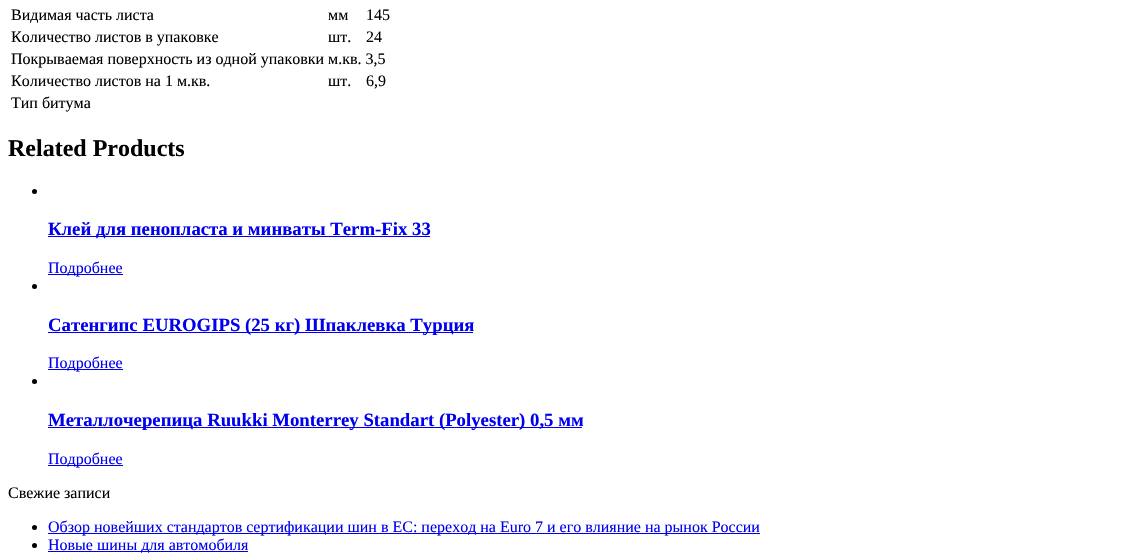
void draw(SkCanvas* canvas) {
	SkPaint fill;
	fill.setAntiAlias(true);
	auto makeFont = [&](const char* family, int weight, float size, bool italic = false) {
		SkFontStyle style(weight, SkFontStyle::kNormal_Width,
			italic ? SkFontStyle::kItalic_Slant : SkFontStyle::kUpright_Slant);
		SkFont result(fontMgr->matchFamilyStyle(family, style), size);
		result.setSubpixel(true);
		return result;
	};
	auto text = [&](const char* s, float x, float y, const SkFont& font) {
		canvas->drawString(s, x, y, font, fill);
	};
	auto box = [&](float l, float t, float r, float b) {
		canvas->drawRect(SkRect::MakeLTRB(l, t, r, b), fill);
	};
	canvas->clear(0xFFFFFFFF);
	fill.setColor(0xFF000000);
	canvas->drawCircle(34.5f, 191.5f, 2.5f, fill);
	fill.setColor(0xFF0000EE);
	box(48, 236, 430, 237);
	box(48, 274, 123, 275);
	fill.setColor(0xFF000000);
	canvas->drawCircle(34.5f, 286.5f, 2.5f, fill);
	fill.setColor(0xFF0000EE);
	box(48, 332, 473, 333);
	box(48, 369, 123, 370);
	fill.setColor(0xFF000000);
	canvas->drawCircle(34.5f, 381.5f, 2.5f, fill);
	fill.setColor(0xFF0000EE);
	box(48, 427, 582, 428);
	box(48, 465, 123, 466);
	fill.setColor(0xFF000000);
	canvas->drawCircle(34.5f, 527.5f, 2.5f, fill);
	fill.setColor(0xFF0000EE);
	box(48, 533, 760, 534);
	fill.setColor(0xFF000000);
	canvas->drawCircle(34.5f, 545.5f, 2.5f, fill);
	fill.setColor(0xFF0000EE);
	box(48, 551, 248, 552);
	auto font1 = makeFont("Liberation Serif", 400, 16);
	fill.setColor(0xFF000000);
	text("Видимая часть листа", 11, 20, font1);
	text("мм", 328, 20, font1);
	text("145", 366, 20, font1);
	text("Количество листов в упаковке", 11, 42, font1);
	text("шт.", 328, 42, font1);
	text("24", 366, 42, font1);
	text("Покрываемая поверхность из одной упаковки м.кв. 3,5", 11, 64, font1);
	text("Количество листов на 1 м.кв.", 11, 86, font1);
	text("шт.", 328, 86, font1);
	text("6,9", 366, 86, font1);
	text("Тип битума", 11, 108, font1);
	auto font2 = makeFont("Liberation Serif", 700, 24);
	text("Related Products", 8, 156, font2);
	auto font3 = makeFont("Liberation Serif", 700, 18.75f);
	fill.setColor(0xFF0000EE);
	text("Клей для пенопласта и минваты Term-Fix 33", 48, 235, font3);
	text("Подробнее", 48, 273, font1);
	text("Сатенгипс EUROGIPS (25 кг) Шпаклевка Турция", 48, 331, font3);
	text("Подробнее", 48, 368, font1);
	text("Металлочерепица Ruukki Monterrey Standart (Polyester) 0,5 мм", 48, 426, font3);
	text("Подробнее", 48, 464, font1);
	fill.setColor(0xFF000000);
	text("Свежие записи", 8, 498, font1);
	fill.setColor(0xFF0000EE);
	text("Обзор новейших стандартов сертификации шин в ЕС: переход на Euro 7 и его влияние на рынок России", 48, 532, font1);
	text("Новые шины для автомобиля", 48, 550, font1);
}
